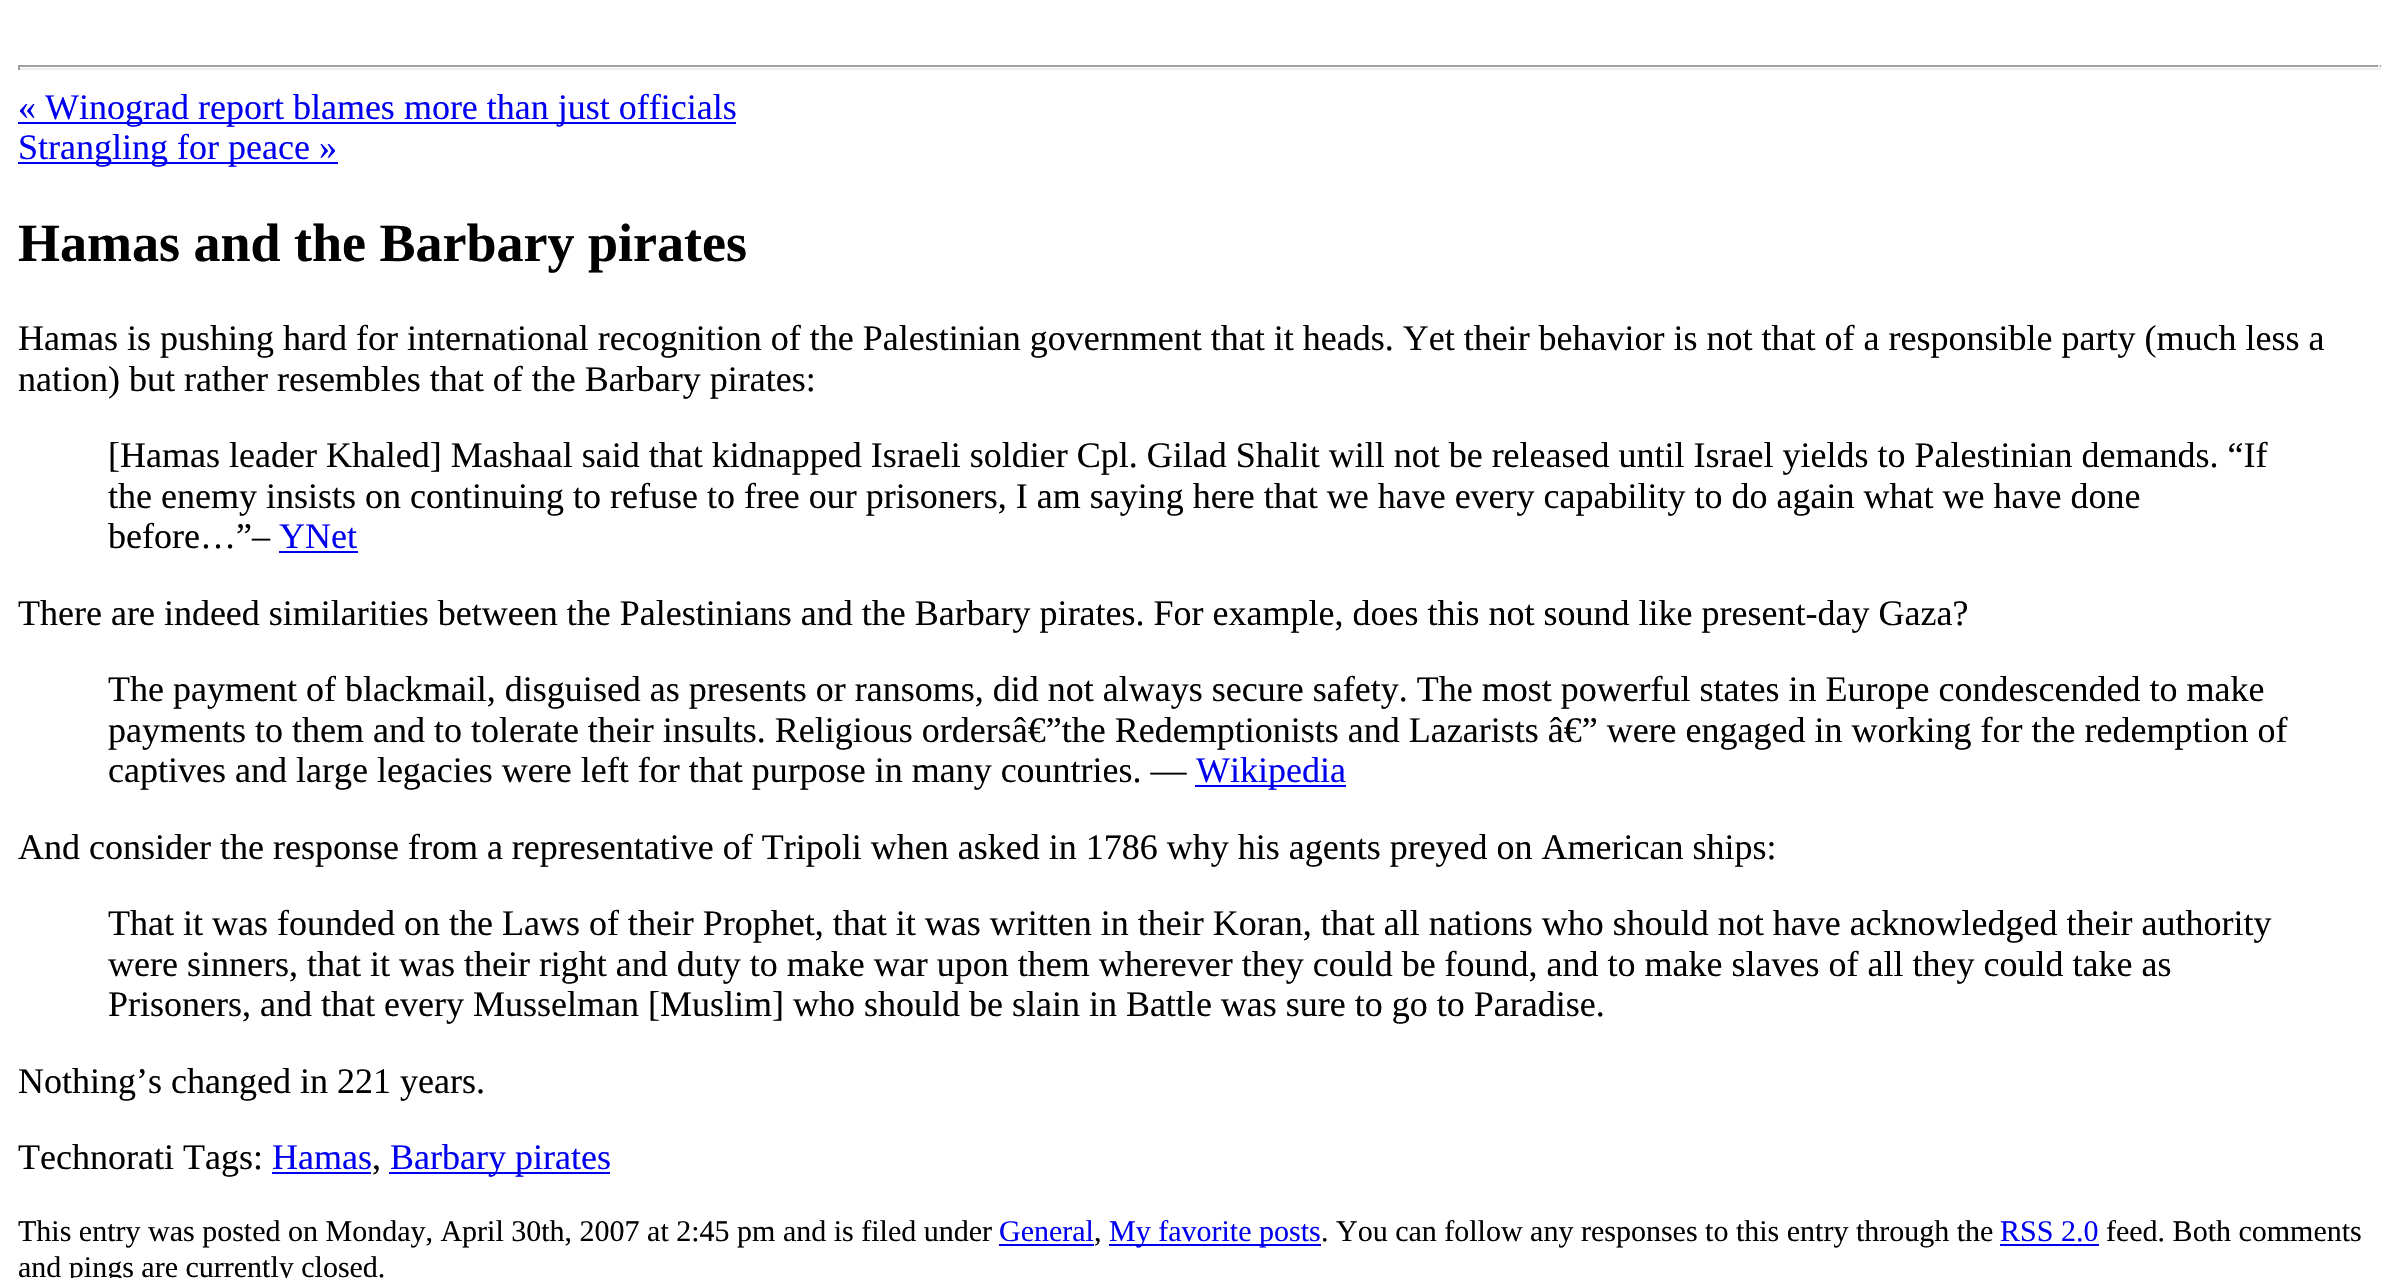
void draw(SkCanvas* canvas) {
	SkPaint fill;
	fill.setAntiAlias(true);
	auto makeFont = [&](const char* family, int weight, float size, bool italic = false) {
		SkFontStyle style(weight, SkFontStyle::kNormal_Width,
			italic ? SkFontStyle::kItalic_Slant : SkFontStyle::kUpright_Slant);
		SkFont result(fontMgr->matchFamilyStyle(family, style), size);
		result.setSubpixel(true);
		return result;
	};
	auto text = [&](const char* s, float x, float y, const SkFont& font) {
		canvas->drawString(s, x, y, font, fill);
	};
	auto box = [&](float l, float t, float r, float b) {
		canvas->drawRect(SkRect::MakeLTRB(l, t, r, b), fill);
	};
	canvas->clear(0xFFFFFFFF);
	fill.setColor(0xFF9F9F9F);
	box(18, 65, 2381, 67);
	fill.setColor(0xFFEEEEEE);
	box(2378, 65, 2380, 70);
	box(18, 68, 2381, 70);
	fill.setColor(0xFF9F9F9F);
	box(18, 65, 20, 70);
	fill.setColor(0xFF0000EE);
	box(18, 122, 736, 124);
	box(18, 162, 338, 164);
	box(279, 551, 358, 553);
	box(1195, 785, 1346, 787);
	box(272, 1172, 371, 1174);
	box(389, 1172, 610, 1174);
	box(999, 1244, 1094, 1246);
	box(1109, 1244, 1321, 1246);
	box(2000, 1244, 2099, 1246);
	auto font1 = makeFont("Liberation Serif", 400, 36);
	text("« Winograd report blames more than just officials", 18, 119, font1);
	text("Strangling for peace »", 18, 159, font1);
	auto font2 = makeFont("Liberation Serif", 700, 54);
	fill.setColor(0xFF000000);
	text("Hamas and the Barbary pirates", 18, 261, font2);
	text("Hamas is pushing hard for international recognition of the Palestinian government that it heads. Yet their behavior is not that of a responsible party (much less a", 18, 350, font1);
	text("nation) but rather resembles that of the Barbary pirates:", 18, 391, font1);
	text("[Hamas leader Khaled] Mashaal said that kidnapped Israeli soldier Cpl. Gilad Shalit will not be released until Israel yields to Palestinian demands. “If", 108, 467, font1);
	text("the enemy insists on continuing to refuse to free our prisoners, I am saying here that we have every capability to do again what we have done", 108, 508, font1);
	text("before…”–", 108, 548, font1);
	fill.setColor(0xFF0000EE);
	text("YNet", 279, 548, font1);
	fill.setColor(0xFF000000);
	text("There are indeed similarities between the Palestinians and the Barbary pirates. For example, does this not sound like present-day Gaza?", 18, 625, font1);
	text("The payment of blackmail, disguised as presents or ransoms, did not always secure safety. The most powerful states in Europe condescended to make", 108, 701, font1);
	text("payments to them and to tolerate their insults. Religious ordersâ€”the Redemptionists and Lazarists â€” were engaged in working for the redemption of", 108, 742, font1);
	text("captives and large legacies were left for that purpose in many countries. —", 108, 782, font1);
	fill.setColor(0xFF0000EE);
	text("Wikipedia", 1196, 782, font1);
	fill.setColor(0xFF000000);
	text("And consider the response from a representative of Tripoli when asked in 1786 why his agents preyed on American ships:", 18, 859, font1);
	text("That it was founded on the Laws of their Prophet, that it was written in their Koran, that all nations who should not have acknowledged their authority", 108, 935, font1);
	text("were sinners, that it was their right and duty to make war upon them wherever they could be found, and to make slaves of all they could take as", 108, 976, font1);
	text("Prisoners, and that every Musselman [Muslim] who should be slain in Battle was sure to go to Paradise.", 108, 1016, font1);
	text("Nothing’s changed in 221 years.", 18, 1093, font1);
	text("Technorati Tags:", 18, 1169, font1);
	fill.setColor(0xFF0000EE);
	text("Hamas", 272, 1169, font1);
	fill.setColor(0xFF000000);
	text(",", 372, 1169, font1);
	fill.setColor(0xFF0000EE);
	text("Barbary pirates", 390, 1169, font1);
	auto font3 = makeFont("Liberation Serif", 400, 30);
	fill.setColor(0xFF000000);
	text("This entry was posted on Monday, April 30th, 2007 at 2:45 pm and is filed under", 18, 1241, font3);
	fill.setColor(0xFF0000EE);
	text("General", 999, 1241, font3);
	fill.setColor(0xFF000000);
	text(",", 1094, 1241, font3);
	fill.setColor(0xFF0000EE);
	text("My favorite posts", 1109, 1241, font3);
	fill.setColor(0xFF000000);
	text(". You can follow any responses to this entry through the", 1321, 1241, font3);
	fill.setColor(0xFF0000EE);
	text("RSS 2.0", 2000, 1241, font3);
	fill.setColor(0xFF000000);
	text("feed. Both comments", 2106, 1241, font3);
	text("and pings are currently closed.", 18, 1277, font3);
}
